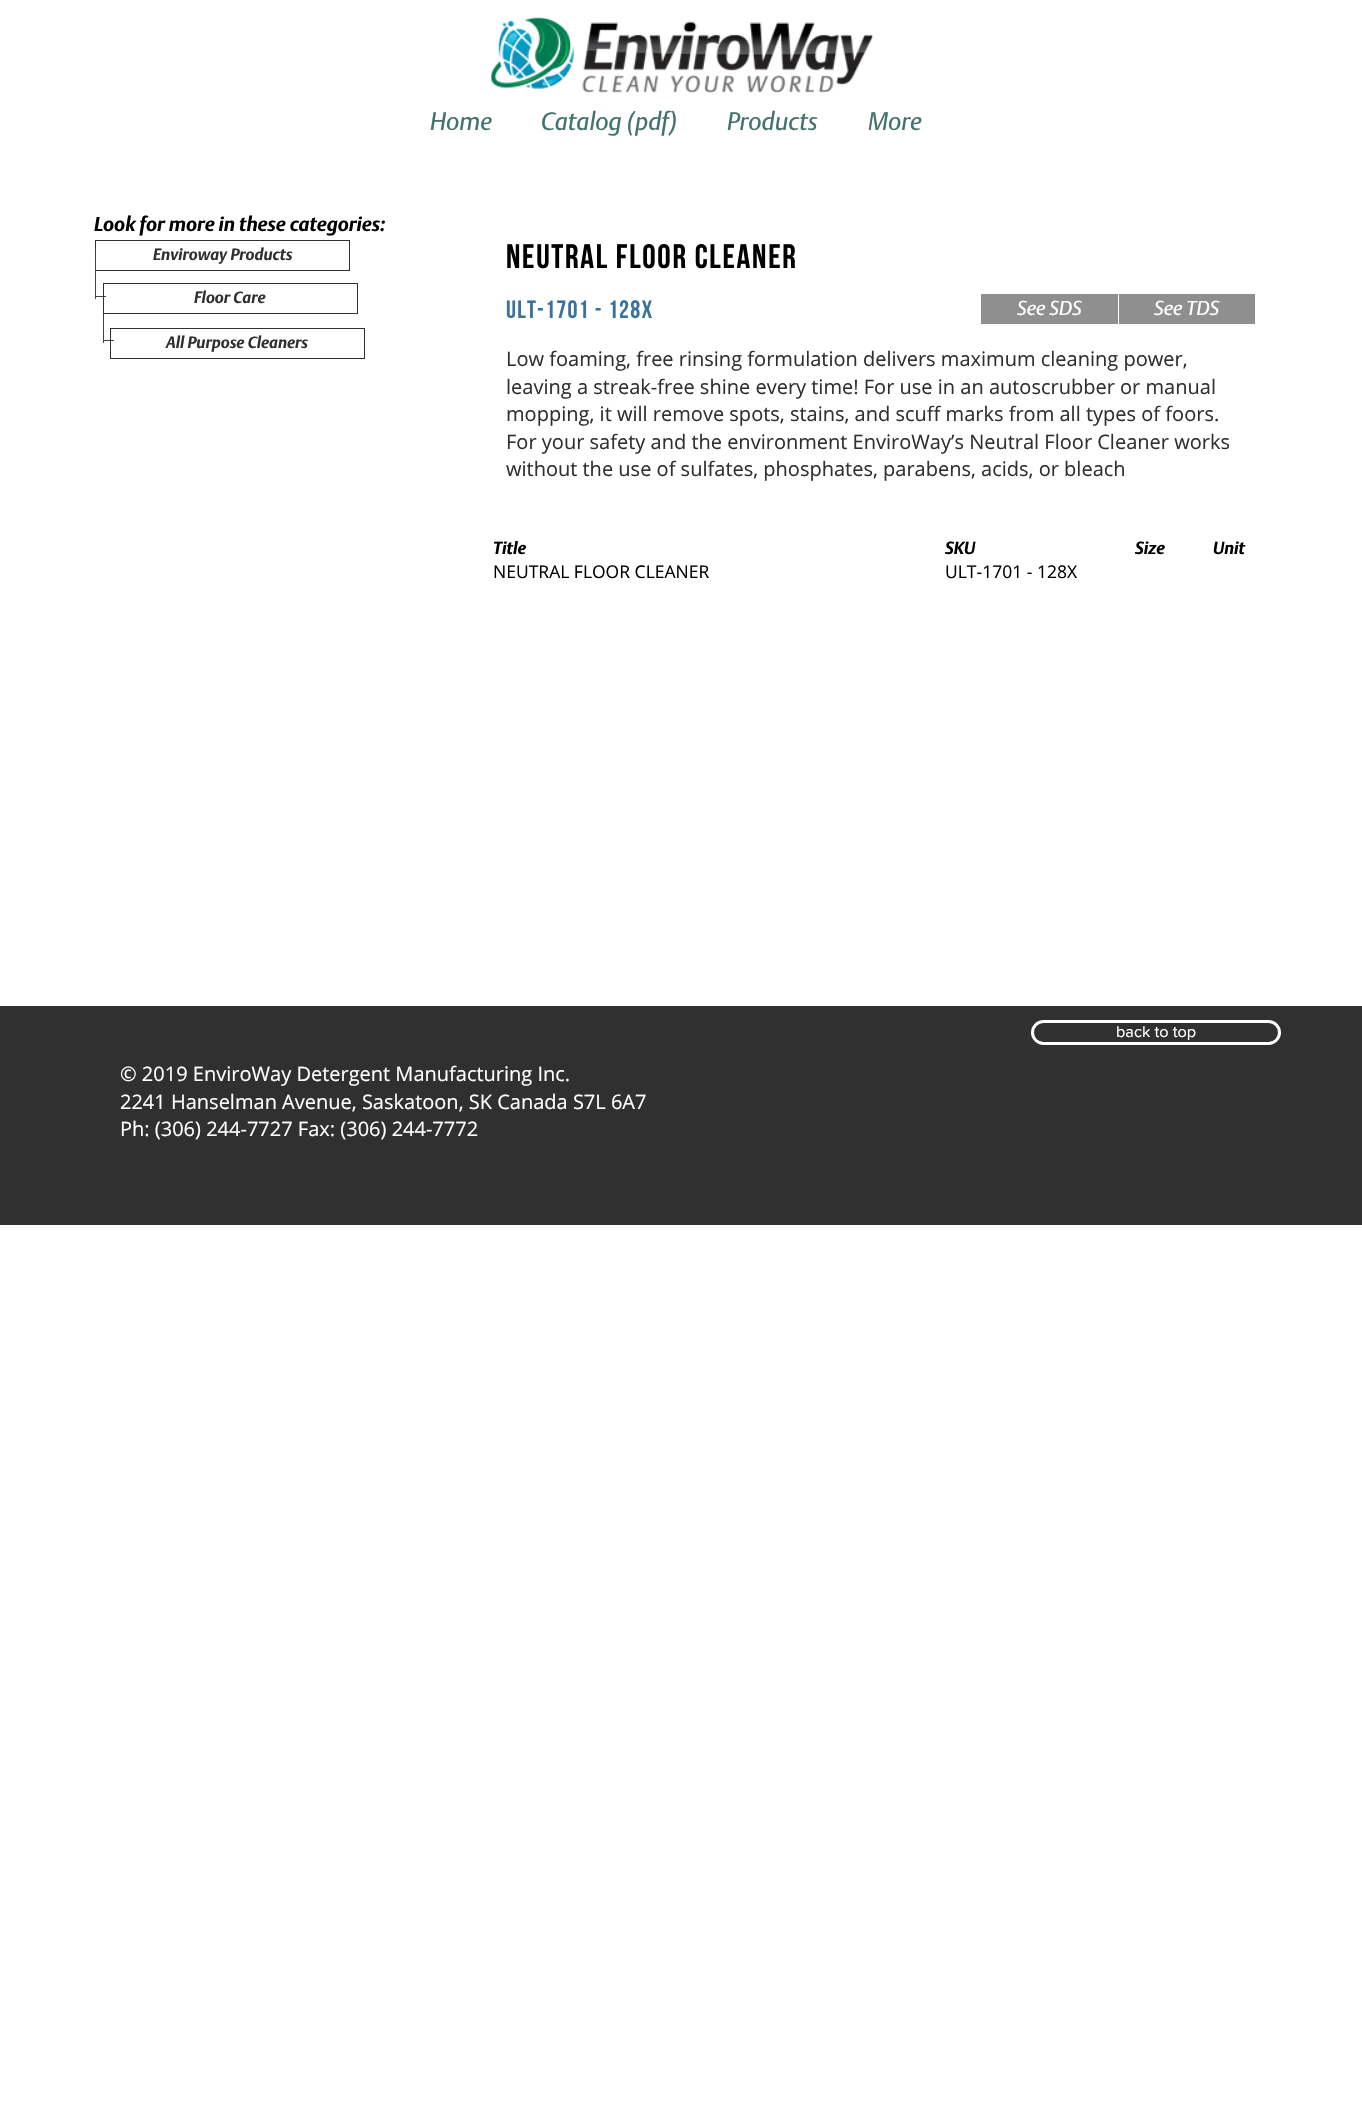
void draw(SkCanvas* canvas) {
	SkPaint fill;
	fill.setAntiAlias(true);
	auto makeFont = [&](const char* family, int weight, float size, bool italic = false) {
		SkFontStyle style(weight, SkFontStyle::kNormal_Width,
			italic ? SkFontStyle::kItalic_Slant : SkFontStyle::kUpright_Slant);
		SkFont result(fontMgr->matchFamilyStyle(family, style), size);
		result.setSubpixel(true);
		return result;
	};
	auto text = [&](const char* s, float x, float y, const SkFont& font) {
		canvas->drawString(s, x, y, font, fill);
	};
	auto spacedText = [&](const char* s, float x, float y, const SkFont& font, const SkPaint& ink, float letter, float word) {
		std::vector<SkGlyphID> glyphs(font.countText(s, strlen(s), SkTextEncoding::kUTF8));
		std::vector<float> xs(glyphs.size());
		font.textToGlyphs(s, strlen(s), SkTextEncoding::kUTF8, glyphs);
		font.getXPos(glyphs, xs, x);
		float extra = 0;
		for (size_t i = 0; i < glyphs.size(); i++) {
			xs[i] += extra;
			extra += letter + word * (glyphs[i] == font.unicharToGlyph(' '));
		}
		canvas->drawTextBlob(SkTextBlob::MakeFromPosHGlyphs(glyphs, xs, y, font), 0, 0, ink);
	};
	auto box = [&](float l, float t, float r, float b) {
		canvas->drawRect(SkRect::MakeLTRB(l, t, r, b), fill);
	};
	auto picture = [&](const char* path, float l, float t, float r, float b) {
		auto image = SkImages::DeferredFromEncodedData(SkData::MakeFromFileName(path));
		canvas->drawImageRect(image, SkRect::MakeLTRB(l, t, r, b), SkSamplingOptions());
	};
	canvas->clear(0xFFFFFFFF);
	picture("image0.png", 491, 17, 873, 93);
	fill.setColor(0xFF424242);
	box(95, 296, 106, 297);
	fill.setStyle(SkPaint::kStroke_Style);
	fill.setStrokeWidth(1);
	fill.setColor(0xFF303030);
	canvas->drawRect(SkRect::MakeLTRB(95.5f, 240.5f, 349.5f, 270.5f), fill);
	fill.setStyle(SkPaint::kFill_Style);
	fill.setColor(0xFF424242);
	box(95, 249, 96, 299);
	fill.setStyle(SkPaint::kStroke_Style);
	fill.setColor(0xFF303030);
	canvas->drawRect(SkRect::MakeLTRB(103.5f, 283.5f, 357.5f, 313.5f), fill);
	fill.setStyle(SkPaint::kFill_Style);
	fill.setColor(0xFF8F8F8F);
	box(981, 294, 1118, 324);
	box(1119, 294, 1255, 324);
	fill.setColor(0xFF424242);
	box(103, 340, 114, 341);
	box(103, 314, 104, 343);
	fill.setStyle(SkPaint::kStroke_Style);
	fill.setColor(0xFF303030);
	canvas->drawRect(SkRect::MakeLTRB(110.5f, 328.5f, 364.5f, 358.5f), fill);
	fill.setStyle(SkPaint::kFill_Style);
	box(0, 1006, 1362, 1225);
	fill.setStyle(SkPaint::kStroke_Style);
	fill.setStrokeWidth(3);
	fill.setColor(0xFFFFFFFF);
	canvas->drawRoundRect(SkRect::MakeLTRB(1032.5f, 1021.5f, 1279.5f, 1043.5f), 11, 11, fill);
	auto font1 = makeFont("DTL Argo", 400, 25, true);
	fill.setStyle(SkPaint::kFill_Style);
	fill.setColor(0xFF44736E);
	text("Home", 430, 130, font1);
	text("Catalog (pdf)", 541, 130, font1);
	text("Products", 727, 130, font1);
	text("More", 868, 130, font1);
	auto font2 = makeFont("DTL Argo", 700, 20, true);
	fill.setColor(0xFF000000);
	text("Look for more in these categories:", 94, 231, font2);
	auto font3 = makeFont("DTL Argo", 700, 16.25f, true);
	fill.setColor(0xFF303030);
	text("Enviroway Products", 153, 260, font3);
	auto font4 = makeFont("Bebas Neue", 400, 33.75f);
	fill.setColor(0xFF000000);
	spacedText("NEUTRAL FLOOR CLEANER", 506, 268, font4, fill, 1.7f, 0);
	fill.setColor(0xFF303030);
	text("Floor Care", 194, 303, font3);
	auto font5 = makeFont("Bebas Neue", 400, 25);
	fill.setColor(0xFF39729B);
	spacedText("ULT-1701 - 128X", 506, 318, font5, fill, 1.25f, 0);
	auto font6 = makeFont("DTL Argo", 400, 20, true);
	fill.setColor(0xFFFFFFFF);
	text("See SDS", 1017, 315, font6);
	text("See TDS", 1154, 315, font6);
	fill.setColor(0xFF303030);
	text("All Purpose Cleaners", 166, 348, font3);
	auto font7 = makeFont("Open Sans", 400, 20);
	text("Low foaming, free rinsing formulation delivers maximum cleaning power,", 506, 366, font7);
	text("leaving a streak-free shine every time! For use in an autoscrubber or manual", 506, 394, font7);
	text("mopping, it will remove spots, stains, and scuff marks from all types of foors.", 506, 421, font7);
	text("For your safety and the environment EnviroWay’s Neutral Floor Cleaner works", 506, 449, font7);
	text("without the use of sulfates, phosphates, parabens, acids, or bleach", 506, 476, font7);
	canvas->save();
	canvas->clipRect(SkRect::MakeLTRB(490, 541, 940, 556));
	auto font8 = makeFont("DTL Argo", 700, 17.5f, true);
	fill.setColor(0xFF000000);
	text("Title", 493, 554, font8);
	canvas->restore();
	text("SKU", 945, 554, font8);
	text("Size", 1135, 554, font8);
	text("Unit", 1213, 554, font8);
	auto font9 = makeFont("Open Sans", 400, 17.5f);
	text("NEUTRAL FLOOR CLEANER", 493, 578, font9);
	text("ULT-1701 - 128X", 945, 578, font9);
	auto font10 = makeFont("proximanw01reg", 400, 16.25f);
	fill.setColor(0xFFFFFFFF);
	text("back to top", 1116, 1037, font10);
	text("© 2019 EnviroWay Detergent Manufacturing Inc.", 120, 1081, font7);
	text("2241 Hanselman Avenue, Saskatoon, SK Canada S7L 6A7", 120, 1109, font7);
	text("Ph: (306) 244-7727 Fax: (306) 244-7772", 120, 1136, font7);
}
